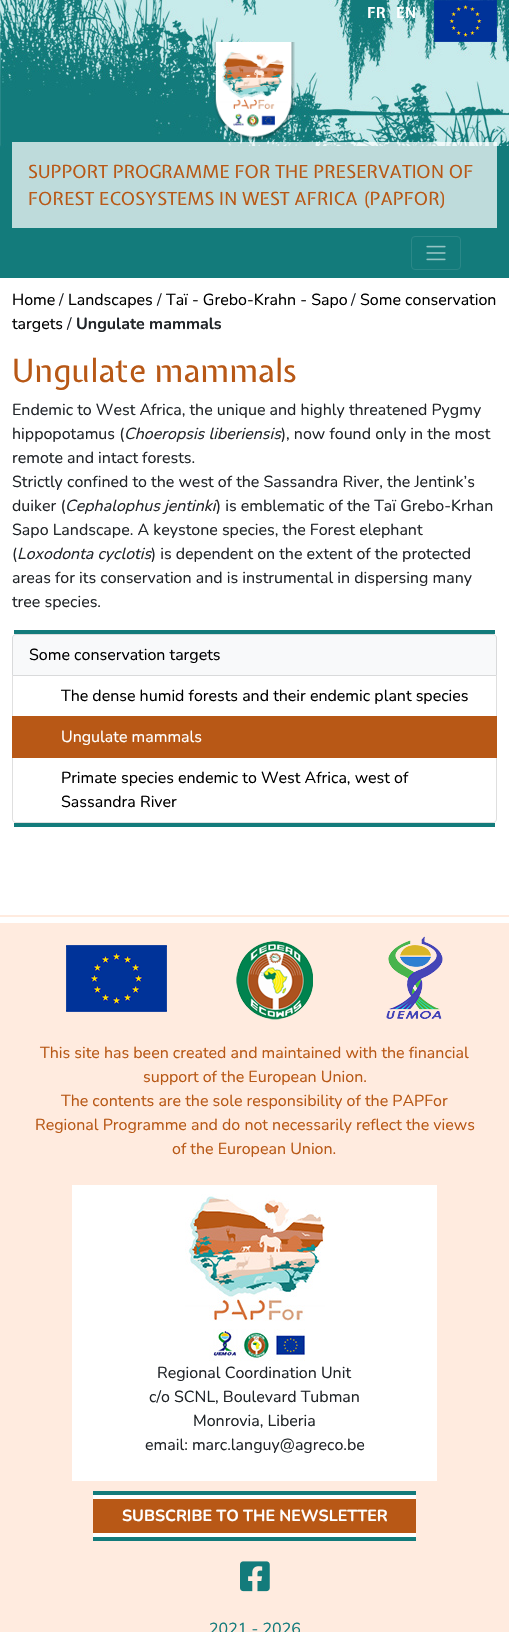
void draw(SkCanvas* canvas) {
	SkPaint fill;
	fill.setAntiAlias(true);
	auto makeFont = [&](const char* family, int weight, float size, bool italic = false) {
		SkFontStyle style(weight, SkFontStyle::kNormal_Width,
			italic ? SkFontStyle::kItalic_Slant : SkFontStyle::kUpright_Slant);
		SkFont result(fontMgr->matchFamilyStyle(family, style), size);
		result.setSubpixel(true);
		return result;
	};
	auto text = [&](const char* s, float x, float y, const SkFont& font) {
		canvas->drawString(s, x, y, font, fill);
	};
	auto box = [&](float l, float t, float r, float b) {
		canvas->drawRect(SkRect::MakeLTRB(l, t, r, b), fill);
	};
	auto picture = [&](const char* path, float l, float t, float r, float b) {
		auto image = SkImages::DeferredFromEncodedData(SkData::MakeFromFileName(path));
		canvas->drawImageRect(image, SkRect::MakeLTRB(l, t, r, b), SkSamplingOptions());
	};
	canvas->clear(0xFFFFFFFF);
	fill.setColor(0xFF137B7B);
	box(0, 148, 509, 278);
	picture("image0.png", 0, 0, 509, 148);
	picture("image1.png", 434, 0, 497, 42);
	picture("image2.png", 214, 42, 295, 141);
	fill.setColor(0xB8FFFFFF);
	box(12, 142, 497, 228);
	fill.setStyle(SkPaint::kStroke_Style);
	fill.setStrokeWidth(1);
	fill.setColor(0xFF2B8888);
	canvas->drawRoundRect(SkRect::MakeLTRB(411.5f, 236.5f, 460.5f, 269.5f), 3.5f, 3.5f, fill);
	picture("image3.png", 426, 245, 446, 261);
	fill.setStyle(SkPaint::kFill_Style);
	fill.setColor(0xFF137B7B);
	box(14, 630, 495, 634);
	box(14, 823, 495, 827);
	fill.setColor(0xFFF8F9FA);
	canvas->drawPath(SkPathBuilder().moveTo(16, 634.5f).lineTo(493, 634.5f).cubicTo(495, 634.5f, 496.5f, 636, 496.5f, 638).lineTo(496.5f, 675.5f).lineTo(12.5f, 675.5f).lineTo(12.5f, 638).cubicTo(12.5f, 636, 14, 634.5f, 16, 634.5f).close().detach(), fill);
	fill.setStyle(SkPaint::kStroke_Style);
	fill.setColor(0xFFD9DADB);
	canvas->drawPath(SkPathBuilder().moveTo(16, 634.5f).lineTo(493, 634.5f).cubicTo(495, 634.5f, 496.5f, 636, 496.5f, 638).lineTo(496.5f, 675.5f).lineTo(12.5f, 675.5f).lineTo(12.5f, 638).cubicTo(12.5f, 636, 14, 634.5f, 16, 634.5f).close().detach(), fill);
	fill.setStyle(SkPaint::kFill_Style);
	fill.setColor(0xFFDFDFDF);
	canvas->drawPath(SkPathBuilder().moveTo(497, 676).lineTo(497, 717).lineTo(496, 716).lineTo(496, 676).close().detach(), fill);
	fill.setColor(0x1F000000);
	canvas->drawPath(SkPathBuilder().moveTo(12, 717).lineTo(12, 676).lineTo(13, 676).lineTo(13, 716).close().detach(), fill);
	fill.setColor(0xFFB85816);
	box(12, 716, 497, 758);
	fill.setColor(0xFFDFDFDF);
	canvas->drawPath(SkPathBuilder(SkPathFillType::kEvenOdd).moveTo(12, 758).lineTo(497, 758).lineTo(497, 819).cubicTo(497, 821, 495, 823, 493, 823).lineTo(16, 823).cubicTo(14, 823, 12, 821, 12, 819).close().moveTo(13, 758).lineTo(496, 758).lineTo(496, 819).cubicTo(496, 821, 495, 822, 493, 822).lineTo(16, 822).cubicTo(14, 822, 13, 821, 13, 819).close().detach(), fill);
	fill.setColor(0xFFFFEBDF);
	box(0, 923, 509, 1632);
	box(0, 915, 509, 917);
	picture("image4.png", 66, 945, 167, 1012);
	picture("image5.png", 236, 941, 313, 1020);
	picture("image6.png", 386, 936, 443, 1019);
	fill.setColor(0xFFFFFFFF);
	box(72, 1185, 437, 1481);
	picture("image7.png", 185, 1194, 325, 1361);
	fill.setColor(0xFFB85816);
	box(93, 1499, 416, 1533);
	fill.setColor(0xFFFFFFFF);
	box(93, 1495, 416, 1499);
	fill.setColor(0xFF137B7B);
	box(93, 1491, 416, 1495);
	fill.setColor(0xFFFFFFFF);
	box(93, 1533, 416, 1537);
	fill.setColor(0xFF137B7B);
	box(93, 1537, 416, 1541);
	picture("image8.png", 240, 1561, 270, 1592);
	auto font1 = makeFont("Expletus Sans", 700, 15);
	fill.setColor(0xFFFFFFFF);
	text("FR", 367, 18, font1);
	text("EN", 396, 18, font1);
	auto font2 = makeFont("Expletus Sans", 400, 18);
	fill.setColor(0xFFB85816);
	text("SUPPORT PROGRAMME FOR THE PRESERVATION OF", 28, 178, font2);
	text("FOREST ECOSYSTEMS IN WEST AFRICA (PAPFOR)", 28, 205, font2);
	auto font3 = makeFont("Nunito", 400, 16);
	fill.setColor(0xFF000000);
	text("Home", 12, 305, font3);
	fill.setColor(0xFF212529);
	text("/", 59, 305, font3);
	fill.setColor(0xFF000000);
	text("Landscapes", 68, 305, font3);
	fill.setColor(0xFF212529);
	text("/", 157, 305, font3);
	fill.setColor(0xFF000000);
	text("Taï - Grebo-Krahn - Sapo", 166, 305, font3);
	fill.setColor(0xFF212529);
	text("/", 351, 305, font3);
	fill.setColor(0xFF000000);
	text("Some conservation", 360, 305, font3);
	text("targets", 12, 329, font3);
	fill.setColor(0xFF212529);
	text("/", 67, 329, font3);
	auto font4 = makeFont("Nunito", 700, 16);
	text("Ungulate mammals", 76, 329, font4);
	auto font5 = makeFont("Expletus Sans", 400, 32);
	fill.setColor(0xFFB85816);
	text("Ungulate mammals", 12, 382, font5);
	fill.setColor(0xFF212529);
	text("Endemic to West Africa, the unique and highly threatened Pygmy", 12, 415, font3);
	text("hippopotamus (", 12, 439, font3);
	auto font6 = makeFont("Nunito", 400, 16, true);
	text("Choeropsis liberiensis", 124, 439, font6);
	text("), now found only in the most", 281, 439, font3);
	text("remote and intact forests.", 12, 463, font3);
	text("Strictly confined to the west of the Sassandra River, the Jentink’s", 12, 487, font3);
	text("duiker (", 12, 511, font3);
	text("Cephalophus jentinki", 65, 511, font6);
	text(") is emblematic of the Taï Grebo-Krhan", 216, 511, font3);
	text("Sapo Landscape. A keystone species, the Forest elephant", 12, 535, font3);
	text("(", 12, 559, font3);
	text("Loxodonta cyclotis", 17, 559, font6);
	text(") is dependent on the extent of the protected", 151, 559, font3);
	text("areas for its conservation and is instrumental in dispersing many", 12, 583, font3);
	text("tree species.", 12, 607, font3);
	fill.setColor(0xFF000000);
	text("Some conservation targets", 29, 660, font3);
	text("The dense humid forests and their endemic plant species", 61, 701, font3);
	fill.setColor(0xFFFFFFFF);
	text("Ungulate mammals", 61, 742, font3);
	fill.setColor(0xFF000000);
	text("Primate species endemic to West Africa, west of", 61, 783, font3);
	text("Sassandra River", 61, 807, font3);
	fill.setColor(0xFFB85816);
	text("This site has been created and maintained with the financial", 40, 1058, font3);
	text("support of the European Union.", 143, 1082, font3);
	text("The contents are the sole responsibility of the PAPFor", 61, 1106, font3);
	text("Regional Programme and do not necessarily reflect the views", 35, 1130, font3);
	text("of the European Union.", 172, 1154, font3);
	fill.setColor(0xFF212529);
	text("Regional Coordination Unit", 157, 1378, font3);
	text("c/o SCNL, Boulevard Tubman", 149, 1402, font3);
	text("Monrovia, Liberia", 193, 1426, font3);
	text("email: marc.languy@agreco.be", 145, 1450, font3);
	fill.setColor(0xFFFFFFFF);
	text("SUBSCRIBE TO THE NEWSLETTER", 122, 1521, font4);
	fill.setColor(0xFF137B7B);
	text("2021 - 2026", 209, 1634, font3);
}
